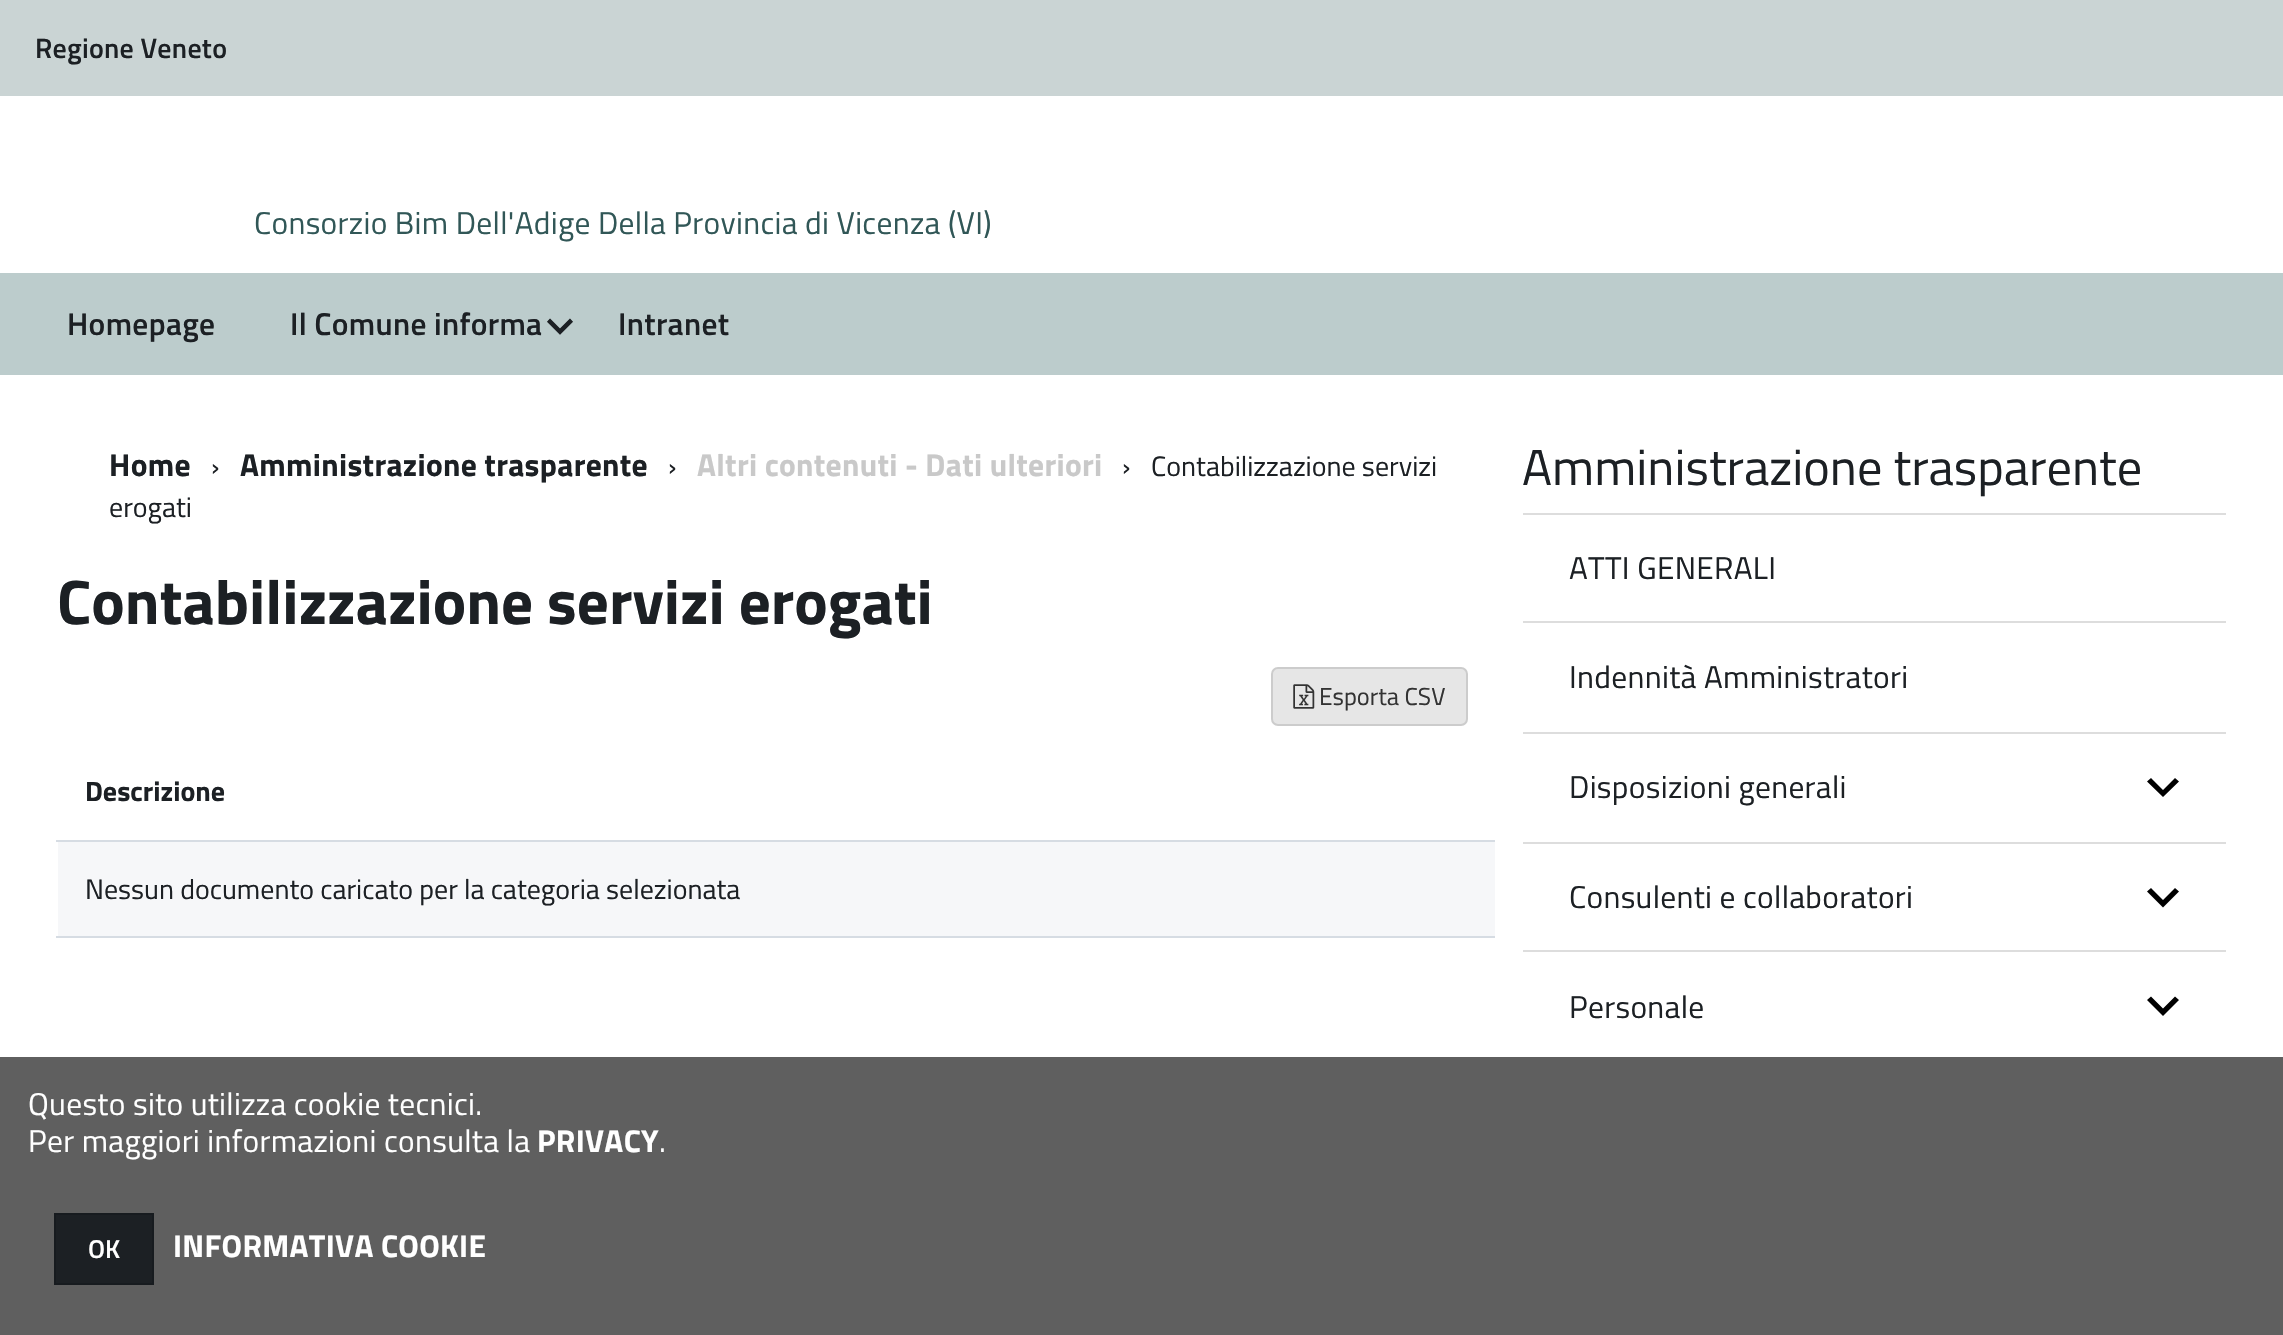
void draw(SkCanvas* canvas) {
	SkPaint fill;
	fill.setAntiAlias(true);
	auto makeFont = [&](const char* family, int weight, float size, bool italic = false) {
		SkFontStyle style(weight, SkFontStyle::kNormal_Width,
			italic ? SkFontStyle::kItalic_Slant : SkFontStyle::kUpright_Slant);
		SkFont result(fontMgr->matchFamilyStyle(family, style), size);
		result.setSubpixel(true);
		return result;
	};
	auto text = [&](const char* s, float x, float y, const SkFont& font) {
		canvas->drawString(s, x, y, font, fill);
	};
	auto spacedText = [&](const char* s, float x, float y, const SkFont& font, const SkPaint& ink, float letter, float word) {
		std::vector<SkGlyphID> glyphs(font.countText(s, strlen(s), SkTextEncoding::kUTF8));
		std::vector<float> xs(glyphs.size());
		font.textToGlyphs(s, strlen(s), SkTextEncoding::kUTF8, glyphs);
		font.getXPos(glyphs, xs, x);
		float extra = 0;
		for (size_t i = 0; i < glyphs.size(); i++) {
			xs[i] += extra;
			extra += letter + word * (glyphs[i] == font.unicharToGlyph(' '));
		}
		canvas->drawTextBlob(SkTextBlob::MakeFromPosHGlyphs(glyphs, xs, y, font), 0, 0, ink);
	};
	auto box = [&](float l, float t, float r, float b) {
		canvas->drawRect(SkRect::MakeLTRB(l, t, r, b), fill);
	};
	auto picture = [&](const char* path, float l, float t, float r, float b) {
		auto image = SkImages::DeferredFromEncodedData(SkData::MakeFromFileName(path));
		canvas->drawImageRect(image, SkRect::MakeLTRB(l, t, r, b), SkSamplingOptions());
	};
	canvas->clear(0xFFFFFFFF);
	fill.setColor(0xFFCAD4D4);
	box(0, 0, 2283, 96);
	fill.setColor(0xFFBCCCCC);
	box(0, 273, 2283, 375);
	fill.setColor(0xFFE6E6E6);
	canvas->drawRoundRect(SkRect::MakeLTRB(1272, 668, 1467, 725), 6, 6, fill);
	fill.setStyle(SkPaint::kStroke_Style);
	fill.setStrokeWidth(2);
	fill.setColor(0xFFCCCCCC);
	canvas->drawRoundRect(SkRect::MakeLTRB(1272, 668, 1467, 725), 6, 6, fill);
	picture("image0.png", 1293, 684, 1315, 709);
	fill.setStyle(SkPaint::kFill_Style);
	fill.setColor(0xFFD6DCE3);
	box(56, 840, 1495, 842);
	fill.setColor(0xFFF6F7F9);
	box(58, 842, 1495, 936);
	fill.setColor(0xFFD6DCE3);
	box(56, 936, 1495, 938);
	fill.setColor(0xFFDDDDDD);
	box(1523, 513, 2226, 515);
	box(1523, 621, 2226, 623);
	box(1523, 732, 2226, 734);
	fill.setColor(0xFF000000);
	canvas->drawPath(SkPathBuilder().moveTo(2151, 778).lineTo(2147, 781.5f).lineTo(2163, 797).lineTo(2179, 781.5f).lineTo(2175, 778).lineTo(2163, 790).close().detach(), fill);
	fill.setColor(0xFFDDDDDD);
	box(1523, 842, 2226, 844);
	fill.setColor(0xFF000000);
	canvas->drawPath(SkPathBuilder().moveTo(2151, 888).lineTo(2147, 891.5f).lineTo(2163, 907.5f).lineTo(2179, 891.5f).lineTo(2175, 888).lineTo(2163, 900).close().detach(), fill);
	fill.setColor(0xFFDDDDDD);
	box(1523, 950, 2226, 952);
	fill.setColor(0xFF000000);
	canvas->drawPath(SkPathBuilder().moveTo(2151, 996.5f).lineTo(2147, 1000).lineTo(2163, 1016).lineTo(2179, 1000).lineTo(2175, 996.5f).lineTo(2163, 1008.5f).close().detach(), fill);
	fill.setColor(0xFF5F5F5F);
	box(0, 1057, 2283, 1335);
	fill.setColor(0xFF1C2024);
	canvas->drawRect(SkRect::MakeLTRB(55, 1214, 153, 1284), fill);
	fill.setStyle(SkPaint::kStroke_Style);
	fill.setColor(0xFF171B1F);
	canvas->drawRect(SkRect::MakeLTRB(55, 1214, 153, 1284), fill);
	auto font1 = makeFont("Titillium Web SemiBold", 600, 28);
	fill.setStyle(SkPaint::kFill_Style);
	fill.setColor(0xFF1C2024);
	spacedText("Regione Veneto", 35, 58, font1, fill, 0.25f, 0);
	auto font2 = makeFont("Titillium Web", 400, 31.5f);
	fill.setColor(0xFF315757);
	spacedText("Consorzio Bim Dell'Adige Della Provincia di Vicenza (VI)", 254, 234, font2, fill, 0.32f, 0);
	auto font3 = makeFont("Titillium Web SemiBold", 600, 31.5f);
	fill.setColor(0xFF1C2024);
	spacedText("Homepage", 67, 335, font3, fill, 0.32f, 0);
	spacedText("Il Comune informa", 290, 335, font3, fill, 0.32f, 0);
	auto font4 = makeFont("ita", 400, 26);
	spacedText("⏶", 547, 338, font4, fill, 0.32f, 0);
	spacedText("Intranet", 618, 335, font3, fill, 0.32f, 0);
	auto font5 = makeFont("Titillium Web", 700, 31.5f);
	spacedText("Home", 109, 476, font5, fill, 0.32f, 0);
	auto font6 = makeFont("Titillium Web", 400, 28);
	text("›", 211, 476, font6);
	spacedText("Amministrazione trasparente", 240, 476, font5, fill, 0.32f, 0);
	text("›", 668, 476, font6);
	fill.setColor(0xFFC9C9C9);
	spacedText("Altri contenuti - Dati ulteriori", 697, 476, font5, fill, 0.32f, 0);
	fill.setColor(0xFF1C2024);
	text("›", 1122, 476, font6);
	text("Contabilizzazione servizi", 1151, 476, font6);
	text("erogati", 109, 517, font6);
	auto font7 = makeFont("Titillium Web", 700, 63);
	text("Contabilizzazione servizi erogati", 57, 624, font7);
	auto font8 = makeFont("Titillium Web", 400, 24.5f);
	fill.setColor(0xFF333333);
	text("Esporta CSV", 1319, 705, font8);
	auto font9 = makeFont("Titillium Web", 700, 28);
	fill.setColor(0xFF1C2024);
	text("Descrizione", 85, 801, font9);
	text("Nessun documento caricato per la categoria selezionata", 85, 899, font6);
	auto font10 = makeFont("Titillium Web", 400, 50.4f);
	text("Amministrazione trasparente", 1522, 485, font10);
	spacedText("ATTI GENERALI", 1569, 579, font2, fill, 0.32f, 0);
	spacedText("Indennità Amministratori", 1569, 688, font2, fill, 0.32f, 0);
	spacedText("Disposizioni generali", 1569, 798, font2, fill, 0.32f, 0);
	spacedText("Consulenti e collaboratori", 1569, 908, font2, fill, 0.32f, 0);
	spacedText("Personale", 1569, 1018, font2, fill, 0.32f, 0);
	fill.setColor(0xFFFFFFFF);
	spacedText("Questo sito utilizza cookie tecnici.", 28, 1115, font2, fill, 0.32f, 0);
	spacedText("Per maggiori informazioni consulta la", 28, 1152, font2, fill, 0.32f, 0);
	spacedText("PRIVACY", 537, 1152, font5, fill, 0.32f, 0);
	spacedText(".", 659, 1152, font2, fill, 0.32f, 0);
	auto font11 = makeFont("Titillium Web SemiBold", 600, 26);
	text("OK", 88, 1258, font11);
	spacedText("INFORMATIVA COOKIE", 173, 1257, font5, fill, 0.32f, 0);
}
